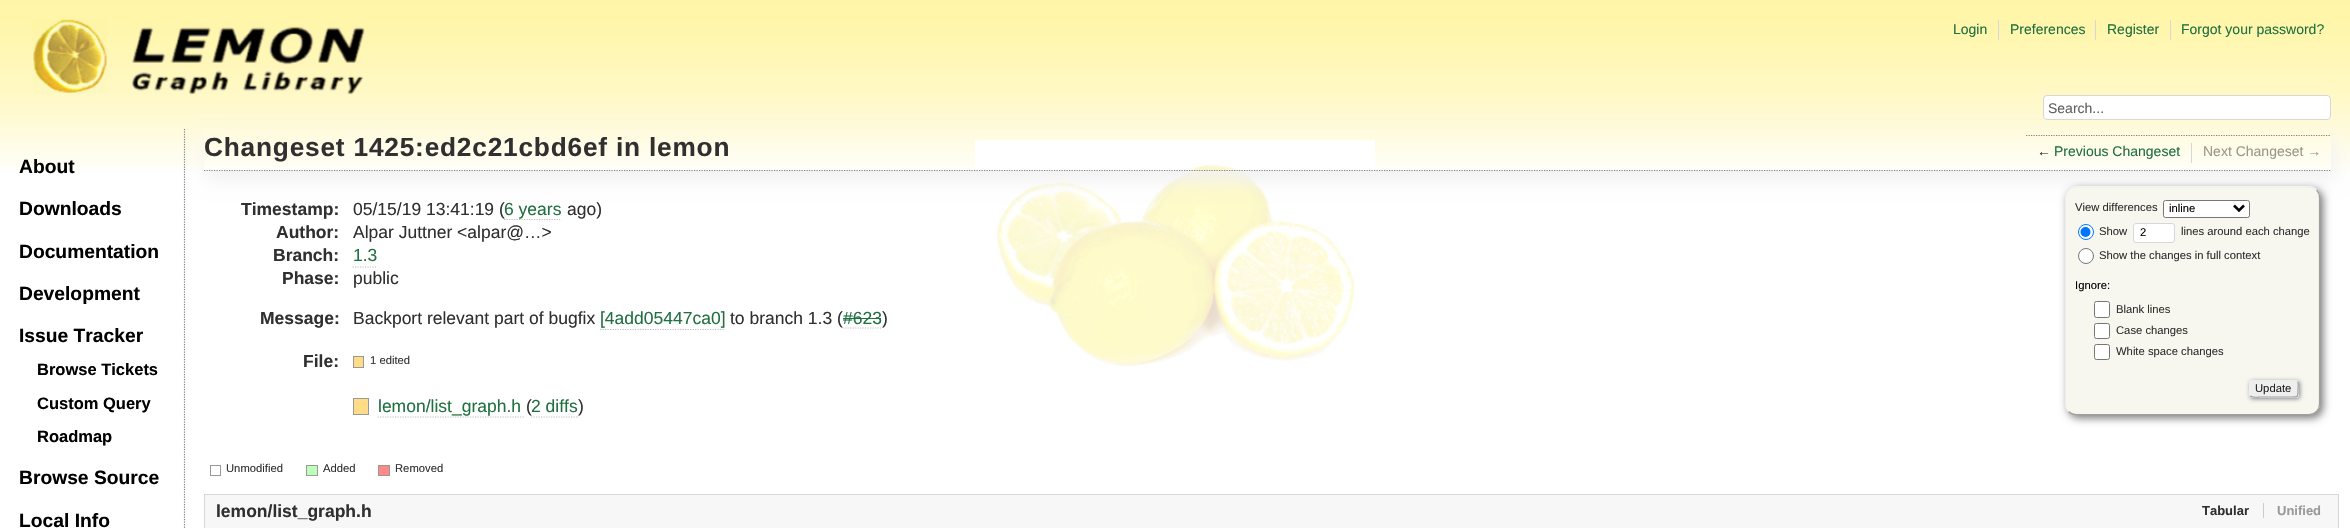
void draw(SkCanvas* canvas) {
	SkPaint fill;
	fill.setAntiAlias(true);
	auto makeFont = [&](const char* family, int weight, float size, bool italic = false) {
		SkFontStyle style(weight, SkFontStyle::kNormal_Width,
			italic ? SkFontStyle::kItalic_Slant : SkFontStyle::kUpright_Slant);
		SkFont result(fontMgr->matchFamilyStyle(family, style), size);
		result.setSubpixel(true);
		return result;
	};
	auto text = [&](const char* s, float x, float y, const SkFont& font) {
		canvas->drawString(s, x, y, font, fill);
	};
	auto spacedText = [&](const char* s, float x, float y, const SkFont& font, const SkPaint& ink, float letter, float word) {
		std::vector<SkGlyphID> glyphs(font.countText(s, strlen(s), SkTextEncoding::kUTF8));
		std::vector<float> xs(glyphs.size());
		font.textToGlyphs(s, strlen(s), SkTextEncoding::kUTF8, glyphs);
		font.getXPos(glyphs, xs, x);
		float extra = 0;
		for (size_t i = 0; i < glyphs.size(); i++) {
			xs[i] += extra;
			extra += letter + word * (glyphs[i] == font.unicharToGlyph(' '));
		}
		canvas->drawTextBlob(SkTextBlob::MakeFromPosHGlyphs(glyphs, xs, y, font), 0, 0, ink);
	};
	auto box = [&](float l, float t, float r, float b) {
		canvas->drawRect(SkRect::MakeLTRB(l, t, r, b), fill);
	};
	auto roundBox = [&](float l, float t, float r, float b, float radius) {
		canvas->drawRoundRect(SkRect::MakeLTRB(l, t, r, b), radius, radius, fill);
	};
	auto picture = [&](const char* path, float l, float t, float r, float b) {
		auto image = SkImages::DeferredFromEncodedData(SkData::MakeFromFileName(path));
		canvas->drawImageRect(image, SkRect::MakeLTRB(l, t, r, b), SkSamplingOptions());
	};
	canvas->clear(0xFFFFFFFF);
	picture("image0.png", 0, 0, 2350, 172);
	picture("image1.png", 32, 19, 107, 94);
	picture("image2.png", 975, 140, 1375, 367);
	fill.setStyle(SkPaint::kStroke_Style);
	fill.setStrokeWidth(1.2f);
	fill.setColor(0xFF808080);
	fill.setPathEffect(SkDashPathEffect::Make({{1.25f, 1.25f}}, 0));
	canvas->drawPath(SkPathBuilder().moveTo(184.5f, 129).lineTo(184.5f, 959).detach(), fill);
	fill.setPathEffect(nullptr);
	fill.setStyle(SkPaint::kFill_Style);
	fill.setColor(0xFFD7D7D7);
	box(1998, 20, 1999, 40);
	box(2095, 20, 2096, 40);
	box(2170, 20, 2171, 40);
	fill.setColor(0xFFFFFFFF);
	canvas->drawRoundRect(SkRect::MakeLTRB(2043.5f, 95.5f, 2330.5f, 119.5f), 3.5f, 3.5f, fill);
	fill.setStyle(SkPaint::kStroke_Style);
	fill.setStrokeWidth(1);
	fill.setColor(0xFFD7D7D7);
	canvas->drawRoundRect(SkRect::MakeLTRB(2043.5f, 95.5f, 2330.5f, 119.5f), 3.5f, 3.5f, fill);
	canvas->save();
	canvas->clipPath(SkPathBuilder(SkPathFillType::kEvenOdd).moveTo(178, 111).lineTo(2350, 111).lineTo(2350, 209).lineTo(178, 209).close().moveTo(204, 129).lineTo(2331, 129).lineTo(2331, 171).lineTo(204, 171).close().detach(), true);
	fill.setStyle(SkPaint::kFill_Style);
	fill.setColor(0xFFF2F2F2);
	fill.setMaskFilter(SkMaskFilter::MakeBlur(kNormal_SkBlurStyle, 9));
	canvas->drawRect(SkRect::MakeLTRB(206, 139, 2334, 181), fill);
	fill.setMaskFilter(nullptr);
	canvas->restore();
	fill.setStyle(SkPaint::kStroke_Style);
	fill.setStrokeWidth(1.2f);
	fill.setColor(0xFF808080);
	fill.setPathEffect(SkDashPathEffect::Make({{1.25f, 1.25f}}, 0));
	canvas->drawPath(SkPathBuilder().moveTo(204, 170.5f).lineTo(2331, 170.5f).detach(), fill);
	fill.setPathEffect(nullptr);
	fill.setColor(0xFFC0C0C0);
	fill.setPathEffect(SkDashPathEffect::Make({{1.25f, 1.25f}}, 0));
	canvas->drawPath(SkPathBuilder().moveTo(352.5f, 267).lineTo(376, 267).detach(), fill);
	fill.setPathEffect(nullptr);
	fill.setPathEffect(SkDashPathEffect::Make({{1.25f, 1.25f}}, 0));
	canvas->drawPath(SkPathBuilder().moveTo(600, 329.5f).lineTo(725, 329.5f).detach(), fill);
	fill.setPathEffect(nullptr);
	fill.setStyle(SkPaint::kFill_Style);
	fill.setColor(0xFF207040);
	box(843, 318, 881, 319);
	fill.setColor(0xFFFFDD88);
	canvas->drawRect(SkRect::MakeLTRB(353.5f, 356.5f, 363.5f, 367.5f), fill);
	fill.setStyle(SkPaint::kStroke_Style);
	fill.setStrokeWidth(1);
	fill.setColor(0xFF999999);
	canvas->drawRect(SkRect::MakeLTRB(353.5f, 356.5f, 363.5f, 367.5f), fill);
	fill.setStyle(SkPaint::kFill_Style);
	fill.setColor(0xFFFFDD88);
	canvas->drawRect(SkRect::MakeLTRB(353.5f, 398.5f, 368.5f, 414.5f), fill);
	fill.setStyle(SkPaint::kStroke_Style);
	fill.setColor(0xFF999999);
	canvas->drawRect(SkRect::MakeLTRB(353.5f, 398.5f, 368.5f, 414.5f), fill);
	fill.setStrokeWidth(1.2f);
	fill.setColor(0xFFC0C0C0);
	fill.setPathEffect(SkDashPathEffect::Make({{1.25f, 1.25f}}, 0));
	canvas->drawPath(SkPathBuilder().moveTo(377.5f, 417).lineTo(525, 417).detach(), fill);
	fill.setPathEffect(nullptr);
	fill.setPathEffect(SkDashPathEffect::Make({{1.25f, 1.25f}}, 0));
	canvas->drawPath(SkPathBuilder().moveTo(531, 417).lineTo(579, 417).detach(), fill);
	fill.setPathEffect(nullptr);
	fill.setStyle(SkPaint::kFill_Style);
	fill.setColor(0xFF777777);
	fill.setMaskFilter(SkMaskFilter::MakeBlur(kNormal_SkBlurStyle, 4));
	canvas->drawRoundRect(SkRect::MakeLTRB(2068, 189, 2323, 418), 11, 11, fill);
	fill.setMaskFilter(nullptr);
	fill.setColor(0xFFF7F7F0);
	roundBox(2065, 186, 2320, 415, 11);
	fill.setStyle(SkPaint::kStroke_Style);
	fill.setColor(0xFF9F9F9F);
	canvas->drawPath(SkPathBuilder().moveTo(2316.5f, 190).cubicTo(2318.5f, 192, 2319.5f, 194.5f, 2319.5f, 197.5f).lineTo(2319.5f, 404).cubicTo(2319.5f, 406.5f, 2318.5f, 409.5f, 2316.5f, 411.5f).cubicTo(2314.5f, 413.5f, 2311.5f, 414.5f, 2309, 414.5f).lineTo(2076, 414.5f).cubicTo(2073.5f, 414.5f, 2070.5f, 413.5f, 2068.5f, 411.5f).detach(), fill);
	fill.setColor(0xFFEEEEEE);
	canvas->drawPath(SkPathBuilder().moveTo(2068.5f, 411.5f).cubicTo(2066.5f, 409.5f, 2065.5f, 406.5f, 2065.5f, 404).lineTo(2065.5f, 197.5f).cubicTo(2065.5f, 194.5f, 2066.5f, 192, 2068.5f, 190).cubicTo(2070.5f, 188, 2073.5f, 187, 2076, 187).lineTo(2309, 187).cubicTo(2311.5f, 187, 2314.5f, 188, 2316.5f, 190).detach(), fill);
	fill.setStyle(SkPaint::kFill_Style);
	fill.setColor(0xFFFFFFFF);
	canvas->drawRoundRect(SkRect::MakeLTRB(2163.5f, 200.5f, 2249.5f, 217.5f), 2, 2, fill);
	fill.setStyle(SkPaint::kStroke_Style);
	fill.setStrokeWidth(1);
	fill.setColor(0xFF767676);
	canvas->drawRoundRect(SkRect::MakeLTRB(2163.5f, 200.5f, 2249.5f, 217.5f), 2, 2, fill);
	fill.setStrokeWidth(2.5f);
	fill.setColor(0xFF000000);
	canvas->drawPath(SkPathBuilder().moveTo(2234, 205.5f).lineTo(2239, 210.5f).lineTo(2244, 205.5f).detach(), fill);
	fill.setStyle(SkPaint::kFill_Style);
	fill.setColor(0xFFFFFFFF);
	canvas->drawCircle(2086, 232, 7.5f, fill);
	fill.setStyle(SkPaint::kStroke_Style);
	fill.setStrokeWidth(1);
	fill.setColor(0xFF0075FF);
	canvas->drawCircle(2086, 232, 7.5f, fill);
	fill.setStyle(SkPaint::kFill_Style);
	canvas->drawCircle(2085.5f, 232, 5, fill);
	fill.setColor(0xFFFFFFFF);
	canvas->drawRoundRect(SkRect::MakeLTRB(2133.5f, 223.5f, 2174.5f, 242.5f), 2.5f, 2.5f, fill);
	fill.setStyle(SkPaint::kStroke_Style);
	fill.setColor(0xFFD7D7D7);
	canvas->drawRoundRect(SkRect::MakeLTRB(2133.5f, 223.5f, 2174.5f, 242.5f), 2.5f, 2.5f, fill);
	fill.setStyle(SkPaint::kFill_Style);
	fill.setColor(0xFFFFFFFF);
	canvas->drawCircle(2086, 256, 7.5f, fill);
	fill.setStyle(SkPaint::kStroke_Style);
	fill.setColor(0xFF767676);
	canvas->drawCircle(2086, 256, 7.5f, fill);
	fill.setStyle(SkPaint::kFill_Style);
	fill.setColor(0xFFFFFFFF);
	canvas->drawRoundRect(SkRect::MakeLTRB(2094.5f, 301.5f, 2109.5f, 317.5f), 2, 2, fill);
	fill.setStyle(SkPaint::kStroke_Style);
	fill.setColor(0xFF767676);
	canvas->drawRoundRect(SkRect::MakeLTRB(2094.5f, 301.5f, 2109.5f, 317.5f), 2, 2, fill);
	fill.setStyle(SkPaint::kFill_Style);
	fill.setColor(0xFFFFFFFF);
	canvas->drawRoundRect(SkRect::MakeLTRB(2094.5f, 323.5f, 2109.5f, 338.5f), 2, 2, fill);
	fill.setStyle(SkPaint::kStroke_Style);
	fill.setColor(0xFF767676);
	canvas->drawRoundRect(SkRect::MakeLTRB(2094.5f, 323.5f, 2109.5f, 338.5f), 2, 2, fill);
	fill.setStyle(SkPaint::kFill_Style);
	fill.setColor(0xFFFFFFFF);
	canvas->drawRoundRect(SkRect::MakeLTRB(2094.5f, 344.5f, 2109.5f, 359.5f), 2, 2, fill);
	fill.setStyle(SkPaint::kStroke_Style);
	fill.setColor(0xFF767676);
	canvas->drawRoundRect(SkRect::MakeLTRB(2094.5f, 344.5f, 2109.5f, 359.5f), 2, 2, fill);
	fill.setStyle(SkPaint::kFill_Style);
	fill.setColor(0xFF888888);
	fill.setMaskFilter(SkMaskFilter::MakeBlur(kNormal_SkBlurStyle, 2));
	canvas->drawRoundRect(SkRect::MakeLTRB(2250, 381, 2300, 399), 3, 3, fill);
	fill.setMaskFilter(nullptr);
	fill.setColor(0xFFEEEEEE);
	roundBox(2249, 380, 2299, 398, 3);
	fill.setStyle(SkPaint::kStroke_Style);
	fill.setStrokeWidth(1.2f);
	fill.setColor(0xFF9F9F9F);
	canvas->drawPath(SkPathBuilder().moveTo(2297.5f, 381.5f).cubicTo(2299, 383, 2298, 386.5f, 2298, 389).cubicTo(2298, 398, 2298.5f, 397, 2288, 397).lineTo(2259.5f, 397).cubicTo(2259, 397, 2252, 398, 2250, 396).detach(), fill);
	fill.setColor(0xFFEEEEEE);
	canvas->drawPath(SkPathBuilder().moveTo(2250, 396).cubicTo(2248.5f, 394.5f, 2249.5f, 391, 2249.5f, 389).cubicTo(2249.5f, 379.5f, 2249, 380.5f, 2259.5f, 380.5f).lineTo(2288, 380.5f).cubicTo(2288.5f, 380.5f, 2295.5f, 379.5f, 2297.5f, 381.5f).detach(), fill);
	fill.setStrokeWidth(1);
	fill.setColor(0xFF999999);
	canvas->drawRect(SkRect::MakeLTRB(210.5f, 465.5f, 220.5f, 475.5f), fill);
	fill.setStyle(SkPaint::kFill_Style);
	fill.setColor(0xFFBBFFBB);
	canvas->drawRect(SkRect::MakeLTRB(306.5f, 465.5f, 317.5f, 475.5f), fill);
	fill.setStyle(SkPaint::kStroke_Style);
	fill.setColor(0xFF999999);
	canvas->drawRect(SkRect::MakeLTRB(306.5f, 465.5f, 317.5f, 475.5f), fill);
	fill.setStyle(SkPaint::kFill_Style);
	fill.setColor(0xFFFF8888);
	canvas->drawRect(SkRect::MakeLTRB(378.5f, 465.5f, 389.5f, 475.5f), fill);
	fill.setStyle(SkPaint::kStroke_Style);
	fill.setColor(0xFF999999);
	canvas->drawRect(SkRect::MakeLTRB(378.5f, 465.5f, 389.5f, 475.5f), fill);
	fill.setStyle(SkPaint::kFill_Style);
	fill.setColor(0xFFF7F7F7);
	canvas->drawRect(SkRect::MakeLTRB(204.5f, 494.5f, 2338.5f, 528.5f), fill);
	fill.setStyle(SkPaint::kStroke_Style);
	fill.setColor(0xFFD7D7D7);
	canvas->drawRect(SkRect::MakeLTRB(204.5f, 494.5f, 2338.5f, 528.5f), fill);
	fill.setStyle(SkPaint::kFill_Style);
	fill.setColor(0xFFCCCCCC);
	box(2263, 503, 2264, 518);
	fill.setStyle(SkPaint::kStroke_Style);
	fill.setStrokeWidth(1.2f);
	fill.setColor(0xFF808080);
	fill.setPathEffect(SkDashPathEffect::Make({{1.25f, 1.25f}}, 0));
	canvas->drawPath(SkPathBuilder().moveTo(2026, 135.5f).lineTo(2331, 135.5f).detach(), fill);
	fill.setPathEffect(nullptr);
	fill.setStyle(SkPaint::kFill_Style);
	fill.setColor(0xFFD7D7D7);
	box(2191, 143, 2192, 163);
	picture("image3.png", 131, 26, 365, 95);
	auto font1 = makeFont("Liberation Sans", 400, 14);
	fill.setColor(0xFF207040);
	text("Login", 1953, 34, font1);
	text("Preferences", 2010, 34, font1);
	text("Register", 2107, 34, font1);
	text("Forgot your password?", 2181, 34, font1);
	auto font2 = makeFont("Liberation Sans", 700, 26.25f);
	fill.setColor(0xFF303030);
	spacedText("Changeset 1425:ed2c21cbd6ef in lemon", 204, 156, font2, fill, 0.8f, 0);
	auto font3 = makeFont("Liberation Sans", 700, 17.5f);
	text("Timestamp:", 241, 215, font3);
	auto font4 = makeFont("Liberation Sans", 400, 17.5f);
	text("05/15/19 13:41:19 (", 353, 215, font4);
	fill.setStyle(SkPaint::kStroke_Style);
	fill.setColor(0xFFC0C0C0);
	fill.setPathEffect(SkDashPathEffect::Make({{1.25f, 1.25f}}, 0));
	canvas->drawPath(SkPathBuilder().moveTo(504, 219.5f).lineTo(561, 219.5f).detach(), fill);
	fill.setPathEffect(nullptr);
	fill.setStyle(SkPaint::kFill_Style);
	fill.setColor(0xFF207040);
	text("6 years", 504, 215, font4);
	fill.setColor(0xFF303030);
	text("ago)", 567, 215, font4);
	text("Author:", 276, 238, font3);
	text("Alpar Juttner <alpar@…>", 353, 238, font4);
	text("Branch:", 273, 261, font3);
	fill.setColor(0xFF207040);
	text("1.3", 353, 261, font4);
	fill.setColor(0xFF303030);
	text("Phase:", 282, 284, font3);
	text("public", 353, 284, font4);
	text("Message:", 260, 324, font3);
	text("Backport relevant part of bugfix", 353, 324, font4);
	fill.setColor(0xFF207040);
	text("[4add05447ca0]", 600, 324, font4);
	fill.setColor(0xFF303030);
	text("to branch 1.3 (", 730, 324, font4);
	fill.setColor(0xFF207040);
	text("#623", 843, 324, font4);
	fill.setStyle(SkPaint::kStroke_Style);
	fill.setColor(0xFFC0C0C0);
	fill.setPathEffect(SkDashPathEffect::Make({{1.25f, 1.25f}}, 0));
	canvas->drawPath(SkPathBuilder().moveTo(842.5f, 328).lineTo(881, 328).detach(), fill);
	fill.setPathEffect(nullptr);
	fill.setStyle(SkPaint::kFill_Style);
	fill.setColor(0xFF303030);
	text(")", 882, 324, font4);
	text("File:", 303, 367, font3);
	auto font5 = makeFont("Liberation Sans", 400, 11.25f);
	text("1 edited", 370, 364, font5);
	fill.setColor(0xFF207040);
	text("lemon/list_graph.h", 378, 412, font4);
	fill.setColor(0xFF303030);
	text("(", 526, 412, font4);
	fill.setColor(0xFF207040);
	text("2 diffs", 531, 412, font4);
	fill.setColor(0xFF303030);
	text(")", 578, 412, font4);
	text("View differences", 2075, 211, font5);
	fill.setColor(0xFF000000);
	text("inline", 2169, 212, font5);
	fill.setColor(0xFF303030);
	text("Show", 2099, 235, font5);
	fill.setColor(0xFF000000);
	text("2", 2140, 236, font5);
	fill.setColor(0xFF303030);
	text("lines around each change", 2181, 235, font5);
	text("Show the changes in full context", 2099, 259, font5);
	fill.setColor(0xFF000000);
	text("Ignore:", 2075, 289, font5);
	fill.setColor(0xFF303030);
	text("Blank lines", 2116, 313, font5);
	text("Case changes", 2116, 334, font5);
	text("White space changes", 2116, 355, font5);
	fill.setColor(0xFF222222);
	text("Update", 2255, 392, font5);
	fill.setColor(0xFF303030);
	text("Unmodified", 226, 472, font5);
	text("Added", 323, 472, font5);
	text("Removed", 395, 472, font5);
	text("lemon/list_graph.h", 216, 517, font3);
	auto font6 = makeFont("Liberation Sans", 700, 13);
	text("Tabular", 2202, 515, font6);
	fill.setColor(0xFF999999);
	text("Unified", 2277, 515, font6);
	fill.setColor(0xFF303030);
	text("←", 2037, 156, font1);
	fill.setColor(0xFF207040);
	text("Previous Changeset", 2054, 156, font1);
	fill.setColor(0xFF999988);
	text("Next Changeset →", 2203, 156, font1);
	fill.setColor(0xFF606060);
	text("Search...", 2048, 113, font1);
	auto font7 = makeFont("Liberation Sans", 700, 19.25f);
	fill.setColor(0xFF000000);
	text("About", 19, 173, font7);
	text("Downloads", 19, 215, font7);
	text("Documentation", 19, 258, font7);
	text("Development", 19, 300, font7);
	text("Issue Tracker", 19, 342, font7);
	auto font8 = makeFont("Liberation Sans", 700, 16.5f);
	text("Browse Tickets", 37, 375, font8);
	text("Custom Query", 37, 409, font8);
	text("Roadmap", 37, 442, font8);
	text("Browse Source", 19, 484, font7);
	text("Local Info", 19, 527, font7);
}
